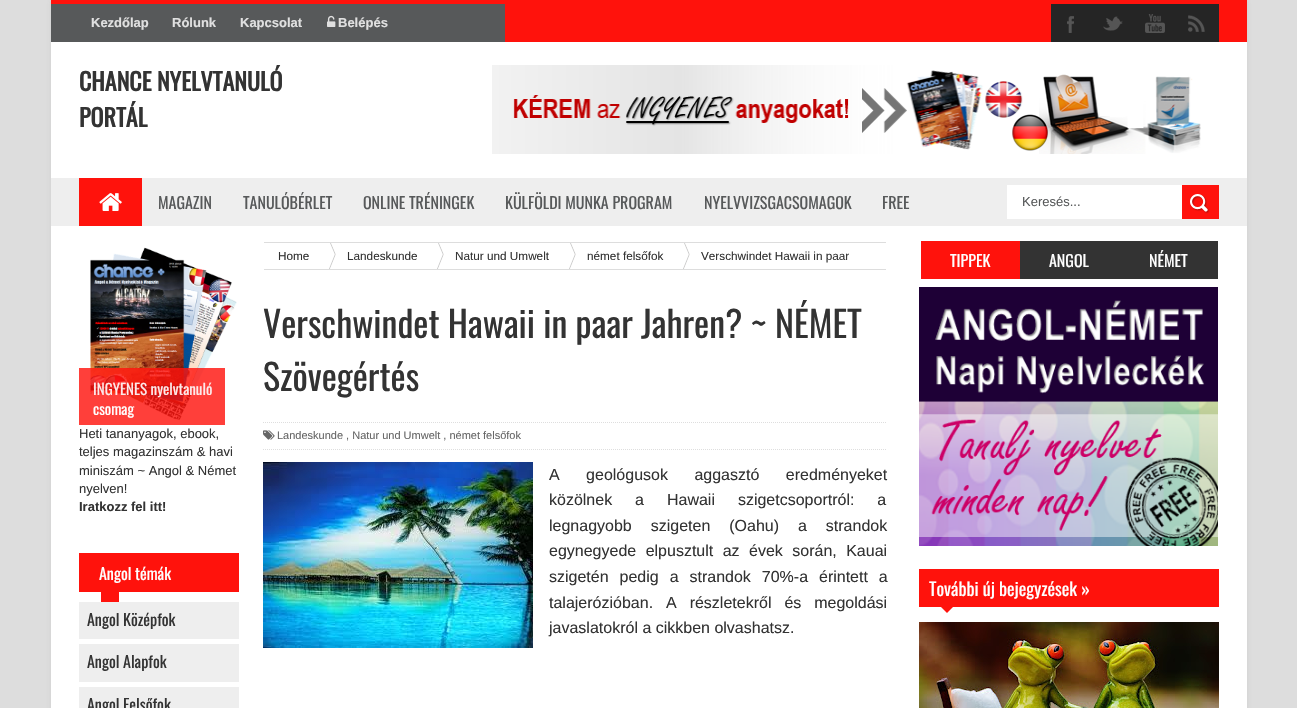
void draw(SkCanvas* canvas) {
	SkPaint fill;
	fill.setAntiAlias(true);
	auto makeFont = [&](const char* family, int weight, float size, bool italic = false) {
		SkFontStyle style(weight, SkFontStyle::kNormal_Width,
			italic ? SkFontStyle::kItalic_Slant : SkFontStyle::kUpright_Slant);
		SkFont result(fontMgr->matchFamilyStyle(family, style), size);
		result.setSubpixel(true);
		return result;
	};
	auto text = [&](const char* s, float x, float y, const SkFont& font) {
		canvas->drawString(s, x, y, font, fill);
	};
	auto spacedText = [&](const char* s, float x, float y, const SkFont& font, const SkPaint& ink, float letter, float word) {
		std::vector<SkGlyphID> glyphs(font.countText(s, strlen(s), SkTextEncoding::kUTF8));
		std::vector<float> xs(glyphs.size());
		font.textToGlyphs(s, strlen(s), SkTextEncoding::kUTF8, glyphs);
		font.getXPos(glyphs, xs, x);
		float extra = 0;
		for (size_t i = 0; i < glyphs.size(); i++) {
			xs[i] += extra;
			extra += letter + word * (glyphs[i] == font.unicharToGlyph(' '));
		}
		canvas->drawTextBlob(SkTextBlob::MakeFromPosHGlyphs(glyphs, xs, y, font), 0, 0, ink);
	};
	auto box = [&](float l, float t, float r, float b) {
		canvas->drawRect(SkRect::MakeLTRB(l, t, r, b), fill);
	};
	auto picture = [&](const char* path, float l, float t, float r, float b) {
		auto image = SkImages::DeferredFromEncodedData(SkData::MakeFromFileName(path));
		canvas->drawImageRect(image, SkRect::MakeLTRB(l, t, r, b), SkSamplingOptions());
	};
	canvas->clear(0xFFDDDDDD);
	fill.setColor(0x1A505050);
	fill.setMaskFilter(SkMaskFilter::MakeBlur(kNormal_SkBlurStyle, 2.5f));
	canvas->drawRect(SkRect::MakeLTRB(51, 0, 1247, 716), fill);
	fill.setMaskFilter(nullptr);
	fill.setColor(0xFFFFFFFF);
	box(51, 42, 1247, 708);
	fill.setColor(0xFF57595A);
	box(51, 4, 505, 42);
	fill.setColor(0xFFFF120C);
	box(505, 4, 1247, 42);
	box(51, 0, 1247, 4);
	picture("image0.png", 327, 15, 336, 27);
	fill.setColor(0xFF252525);
	box(1051, 4, 1219, 42);
	picture("image1.png", 1067, 16, 1074, 33);
	picture("image2.png", 1103, 16, 1123, 31);
	picture("image3.png", 1145, 14, 1165, 33);
	picture("image4.png", 1188, 15, 1205, 32);
	picture("image5.png", 492, 65, 1201, 154);
	fill.setColor(0xFFEEEEEE);
	box(51, 178, 1247, 226);
	fill.setColor(0xFFFF120C);
	box(79, 178, 142, 226);
	picture("image6.png", 99, 193, 122, 211);
	fill.setColor(0xFFFFFFFF);
	box(1007, 185, 1182, 219);
	fill.setColor(0xFFFF120C);
	box(1182, 185, 1219, 219);
	picture("image7.png", 1190, 194, 1210, 214);
	picture("image8.png", 90, 247, 237, 421);
	fill.setColor(0xCFFF120C);
	box(79, 368, 225, 425);
	fill.setColor(0xFFFF120C);
	box(79, 553, 239, 592);
	box(101, 592, 119, 602);
	fill.setColor(0xFFEEEEEE);
	box(79, 602, 239, 639);
	box(79, 644, 239, 682);
	box(79, 687, 239, 708);
	fill.setColor(0xFFDDDDDD);
	box(264, 242, 886, 243);
	box(264, 269, 886, 270);
	picture("image9.png", 329, 243, 336, 269);
	picture("image9.png", 437, 243, 444, 269);
	picture("image9.png", 569, 243, 576, 269);
	picture("image9.png", 683, 243, 690, 269);
	fill.setStyle(SkPaint::kStroke_Style);
	fill.setStrokeWidth(1);
	fill.setColor(0xFFDEDEDE);
	fill.setPathEffect(SkDashPathEffect::Make({{1, 1}}, 0));
	canvas->drawPath(SkPathBuilder().moveTo(263, 422.5f).lineTo(887, 422.5f).detach(), fill);
	fill.setPathEffect(nullptr);
	fill.setPathEffect(SkDashPathEffect::Make({{1, 1}}, 0));
	canvas->drawPath(SkPathBuilder().moveTo(263, 449.5f).lineTo(887, 449.5f).detach(), fill);
	fill.setPathEffect(nullptr);
	picture("image10.png", 263, 430, 275, 440);
	picture("image11.png", 263, 462, 533, 648);
	fill.setStyle(SkPaint::kFill_Style);
	fill.setColor(0xFFFF120C);
	box(921, 241, 1020, 279);
	fill.setColor(0xFF333333);
	box(1020, 241, 1218, 279);
	picture("image12.png", 919, 287, 1218, 546);
	fill.setColor(0xFFFF120C);
	box(919, 569, 1219, 607);
	canvas->drawPath(SkPathBuilder().moveTo(941, 607).lineTo(953, 607).lineTo(947, 613).close().detach(), fill);
	picture("image13.png", 919, 622, 1219, 708);
	auto font1 = makeFont("Liberation Sans", 700, 13);
	fill.setColor(0xFFE0E0E0);
	text("Kezdőlap", 91, 27, font1);
	text("Rólunk", 172, 27, font1);
	text("Kapcsolat", 240, 27, font1);
	text("Belépés", 338, 27, font1);
	auto font2 = makeFont("Oswald", 700, 24);
	fill.setColor(0xFF333333);
	text("CHANCE NYELVTANULÓ", 79, 91, font2);
	text("PORTÁL", 79, 127, font2);
	auto font3 = makeFont("Oswald", 400, 16);
	fill.setColor(0xFF57595A);
	text("MAGAZIN", 158, 209, font3);
	text("TANULÓBÉRLET", 243, 209, font3);
	text("ONLINE TRÉNINGEK", 363, 209, font3);
	text("KÜLFÖLDI MUNKA PROGRAM", 505, 209, font3);
	text("NYELVVIZSGACSOMAGOK", 704, 209, font3);
	text("FREE", 882, 209, font3);
	auto font4 = makeFont("Liberation Sans", 400, 13);
	text("Keresés...", 1022, 206, font4);
	auto font5 = makeFont("Oswald", 400, 15);
	fill.setColor(0xFFFDE9E9);
	text("INGYENES nyelvtanuló", 93, 395, font5);
	fill.setColor(0xFFFFFFFF);
	text("csomag", 93, 415, font5);
	fill.setColor(0xFF333333);
	text("Heti tananyagok, ebook,", 79, 438, font4);
	text("teljes magazinszám & havi", 79, 456, font4);
	text("miniszám ~ Angol & Német", 79, 475, font4);
	text("nyelven!", 79, 493, font4);
	text("Iratkozz fel itt!", 79, 511, font1);
	fill.setColor(0xFFFFFFFF);
	text("Angol témák", 99, 580, font3);
	fill.setColor(0xFF333333);
	text("Angol Középfok", 87, 626, font3);
	text("Angol Alapfok", 87, 668, font3);
	text("Angol Felsőfok", 87, 711, font3);
	auto font6 = makeFont("Liberation Sans", 400, 11.75f);
	text("Home", 278, 260, font6);
	text("Landeskunde", 347, 260, font6);
	text("Natur und Umwelt", 455, 260, font6);
	text("német felsőfok", 587, 260, font6);
	text("Verschwindet Hawaii in paar", 701, 260, font6);
	auto font7 = makeFont("Oswald", 400, 36);
	text("Verschwindet Hawaii in paar Jahren? ~ NÉMET", 263, 338, font7);
	text("Szövegértés", 263, 391, font7);
	auto font8 = makeFont("Liberation Sans", 400, 11);
	fill.setColor(0xFF666666);
	text("Landeskunde , Natur und Umwelt , német felsőfok", 277, 439, font8);
	auto font9 = makeFont("Liberation Sans", 400, 16);
	fill.setColor(0xFF333333);
	spacedText("A geológusok aggasztó eredményeket", 549, 480, font9, fill, 0, 22);
	spacedText("közölnek a Hawaii szigetcsoportról: a", 549, 505, font9, fill, 0, 18.5f);
	spacedText("legnagyobb szigeten (Oahu) a strandok", 549, 531, font9, fill, 0, 14.5f);
	spacedText("egynegyede elpusztult az évek során, Kauai", 549, 556, font9, fill, 0, 5);
	spacedText("szigetén pedig a strandok 70%-a érintett a", 549, 582, font9, fill, 0, 6.5f);
	spacedText("talajerózióban. A részletekről és megoldási", 549, 608, font9, fill, 0, 8.5f);
	text("javaslatokról a cikkben olvashatsz.", 549, 633, font9);
	fill.setColor(0xFFFFFFFF);
	text("TIPPEK", 950, 267, font3);
	text("ANGOL", 1049, 267, font3);
	text("NÉMET", 1149, 267, font3);
	auto font10 = makeFont("Oswald", 400, 18);
	text("További új bejegyzések »", 929, 596, font10);
}
